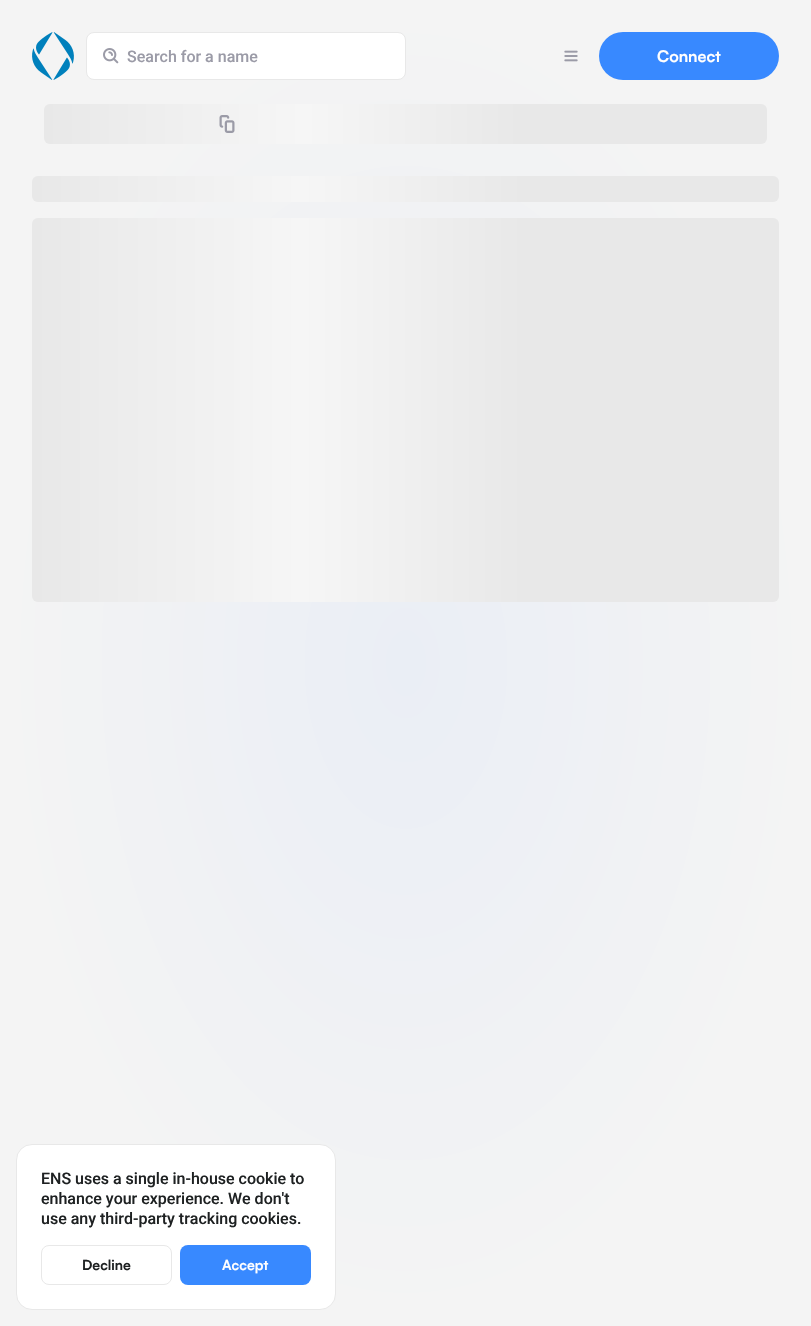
void draw(SkCanvas* canvas) {
	SkPaint fill;
	fill.setAntiAlias(true);
	auto makeFont = [&](const char* family, int weight, float size, bool italic = false) {
		SkFontStyle style(weight, SkFontStyle::kNormal_Width,
			italic ? SkFontStyle::kItalic_Slant : SkFontStyle::kUpright_Slant);
		SkFont result(fontMgr->matchFamilyStyle(family, style), size);
		result.setSubpixel(true);
		return result;
	};
	auto text = [&](const char* s, float x, float y, const SkFont& font) {
		canvas->drawString(s, x, y, font, fill);
	};
	auto box = [&](float l, float t, float r, float b) {
		canvas->drawRect(SkRect::MakeLTRB(l, t, r, b), fill);
	};
	auto roundBox = [&](float l, float t, float r, float b, float radius) {
		canvas->drawRoundRect(SkRect::MakeLTRB(l, t, r, b), radius, radius, fill);
	};
	auto picture = [&](const char* path, float l, float t, float r, float b) {
		auto image = SkImages::DeferredFromEncodedData(SkData::MakeFromFileName(path));
		canvas->drawImageRect(image, SkRect::MakeLTRB(l, t, r, b), SkSamplingOptions());
	};
	canvas->clear(0xFFFFFFFF);
	{
		const SkColor colors[] = {0xFFEAEEF5, 0xFFF4F4F4};
		const float stops[] = {0, 1};
		SkMatrix m = SkMatrix::Translate(406, 663).preScale(406, 663);
		fill.setShader(SkGradientShader::MakeRadial({0, 0}, 1, colors, stops, 2, SkTileMode::kClamp, 0, &m));
		fill.setAlpha(255);
	}
	box(0, 0, 811, 1326);
	picture("image0.png", 32, 32, 74, 80);
	fill.setShader(nullptr);
	fill.setColor(0xFFFFFFFF);
	canvas->drawRoundRect(SkRect::MakeLTRB(86.5f, 32.5f, 405.5f, 79.5f), 7.5f, 7.5f, fill);
	fill.setStyle(SkPaint::kStroke_Style);
	fill.setStrokeWidth(1);
	fill.setColor(0xFFE8E8E8);
	canvas->drawRoundRect(SkRect::MakeLTRB(86.5f, 32.5f, 405.5f, 79.5f), 7.5f, 7.5f, fill);
	picture("image1.png", 103, 48, 119, 64);
	picture("image2.png", 564, 50, 578, 62);
	fill.setStyle(SkPaint::kFill_Style);
	fill.setColor(0xFF3889FF);
	roundBox(599, 32, 779, 80, 24);
	{
		const SkColor colors[] = {0xFFE8E8E8, 0xFFF6F6F6, 0xFFE8E8E8};
		const float stops[] = {0, 0.18f, 0.33f};
		const SkPoint ends[] = {{44, 124}, {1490, 124}};
		fill.setShader(SkGradientShader::MakeLinear(ends, colors, stops, 3, SkTileMode::kClamp));
		fill.setAlpha(255);
	}
	roundBox(44, 104, 767, 144, 6);
	picture("image3.png", 219, 115, 235, 133);
	{
		const SkColor colors[] = {0xFFE8E8E8, 0xFFF6F6F6, 0xFFE8E8E8};
		const float stops[] = {0, 0.18f, 0.33f};
		const SkPoint ends[] = {{32, 189}, {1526, 189}};
		fill.setShader(SkGradientShader::MakeLinear(ends, colors, stops, 3, SkTileMode::kClamp));
		fill.setAlpha(255);
	}
	roundBox(32, 176, 779, 202, 6);
	{
		const SkColor colors[] = {0xFFE8E8E8, 0xFFF6F6F6, 0xFFE8E8E8};
		const float stops[] = {0, 0.18f, 0.33f};
		const SkPoint ends[] = {{32, 410}, {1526, 410}};
		fill.setShader(SkGradientShader::MakeLinear(ends, colors, stops, 3, SkTileMode::kClamp));
		fill.setAlpha(255);
	}
	roundBox(32, 218, 779, 602, 6);
	fill.setShader(nullptr);
	fill.setColor(0xFFFFFFFF);
	canvas->drawRoundRect(SkRect::MakeLTRB(16.5f, 1144.5f, 335.5f, 1309.5f), 15.5f, 15.5f, fill);
	fill.setStyle(SkPaint::kStroke_Style);
	fill.setColor(0xFFE8E8E8);
	canvas->drawRoundRect(SkRect::MakeLTRB(16.5f, 1144.5f, 335.5f, 1309.5f), 15.5f, 15.5f, fill);
	canvas->drawRoundRect(SkRect::MakeLTRB(41.5f, 1245.5f, 171.5f, 1284.5f), 7.5f, 7.5f, fill);
	fill.setStyle(SkPaint::kFill_Style);
	fill.setColor(0xFF3889FF);
	roundBox(180, 1245, 311, 1285, 8);
	auto font1 = makeFont("Roboto", 500, 16);
	fill.setColor(0xFF9B9BA7);
	text("Search for a name", 127, 62, font1);
	auto font2 = makeFont("Satoshi", 700, 16);
	fill.setColor(0xFFFFFFFF);
	text("Connect", 657, 62, font2);
	fill.setColor(0xFF1E2122);
	text("ENS uses a single in-house cookie to", 41, 1184, font1);
	text("enhance your experience. We don't", 41, 1204, font1);
	text("use any third-party tracking cookies.", 41, 1224, font1);
	auto font3 = makeFont("Satoshi", 700, 14);
	text("Decline", 82, 1270, font3);
	fill.setColor(0xFFFFFFFF);
	text("Accept", 222, 1270, font3);
}
